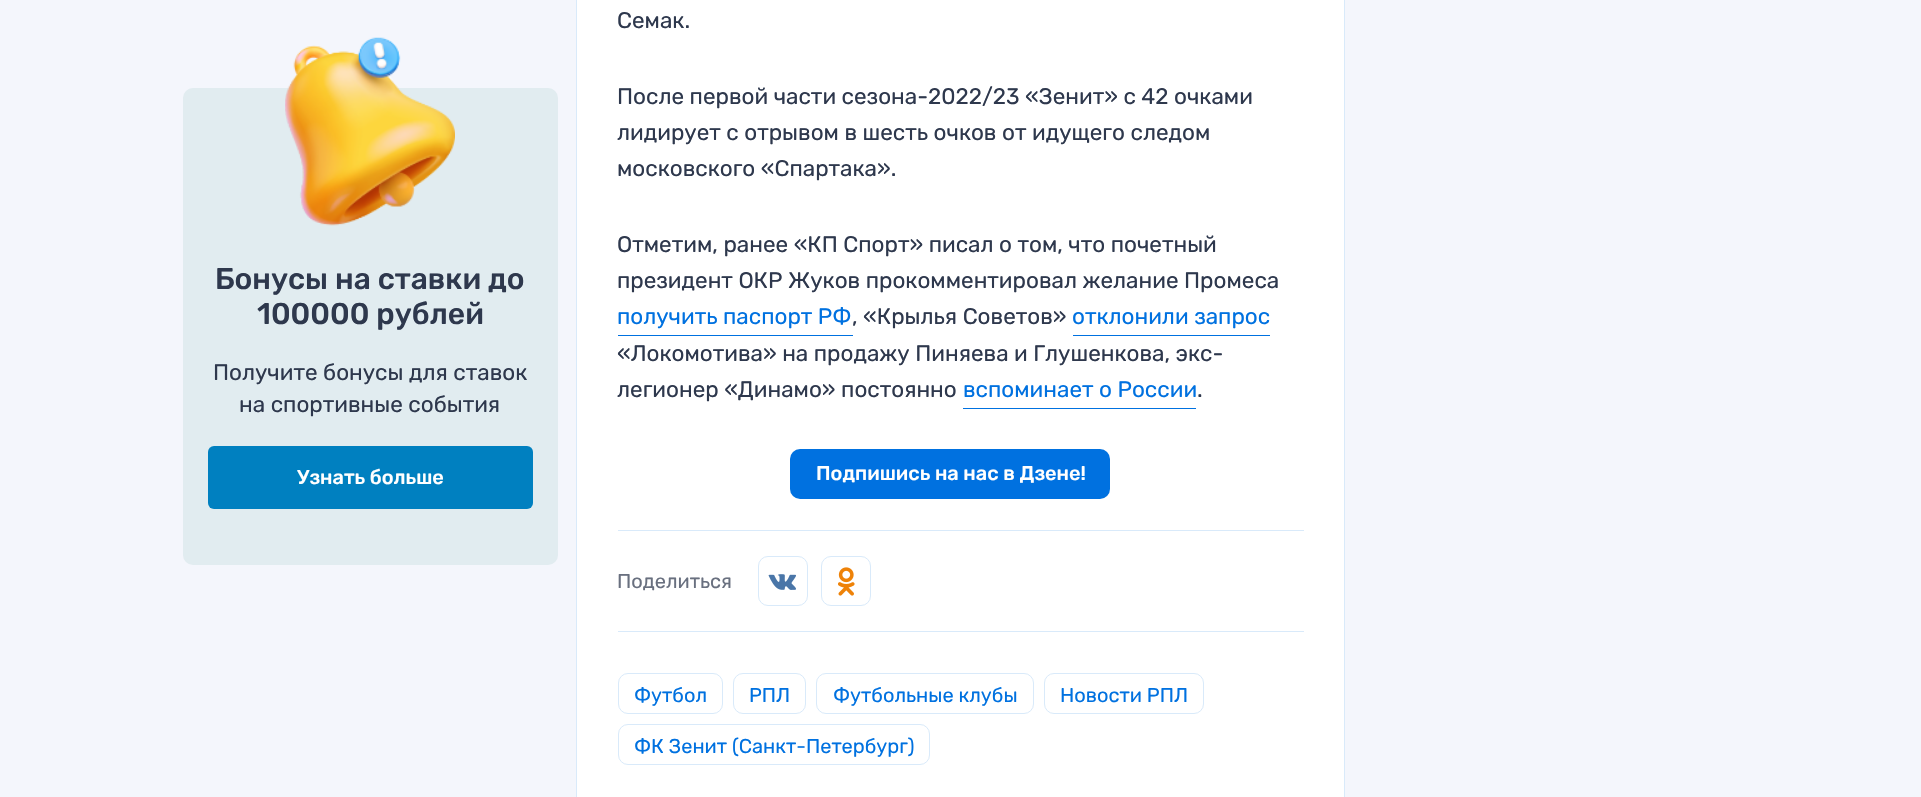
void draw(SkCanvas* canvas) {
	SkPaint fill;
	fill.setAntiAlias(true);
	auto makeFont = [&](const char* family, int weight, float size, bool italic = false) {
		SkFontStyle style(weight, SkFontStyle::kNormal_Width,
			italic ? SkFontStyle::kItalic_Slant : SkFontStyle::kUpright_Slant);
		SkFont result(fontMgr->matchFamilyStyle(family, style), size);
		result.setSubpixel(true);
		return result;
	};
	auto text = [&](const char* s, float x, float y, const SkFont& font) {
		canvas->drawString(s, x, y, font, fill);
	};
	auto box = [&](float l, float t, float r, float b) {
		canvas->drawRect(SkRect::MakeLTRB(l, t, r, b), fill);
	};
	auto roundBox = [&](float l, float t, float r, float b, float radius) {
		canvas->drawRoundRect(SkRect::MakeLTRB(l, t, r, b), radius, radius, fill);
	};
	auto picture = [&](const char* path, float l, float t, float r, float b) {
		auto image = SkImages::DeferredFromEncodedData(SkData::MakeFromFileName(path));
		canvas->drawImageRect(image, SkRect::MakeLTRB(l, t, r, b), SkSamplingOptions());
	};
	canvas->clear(0xFFF4F6FC);
	fill.setColor(0xFFE1ECF0);
	roundBox(183, 88, 558, 565, 10);
	picture("image0.png", 285, 37, 455, 226);
	fill.setColor(0xFF0080C0);
	roundBox(208, 446, 533, 509, 6);
	fill.setColor(0xFFFFFFFF);
	canvas->drawRect(SkRect::MakeLTRB(576.5f, -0.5f, 1344.5f, 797.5f), fill);
	fill.setStyle(SkPaint::kStroke_Style);
	fill.setStrokeWidth(1);
	fill.setColor(0xFFD9EAFA);
	canvas->drawRect(SkRect::MakeLTRB(576.5f, -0.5f, 1344.5f, 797.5f), fill);
	fill.setStyle(SkPaint::kFill_Style);
	fill.setColor(0xFF0071E0);
	box(618, 335, 853, 336);
	box(1073, 335, 1270, 336);
	box(963, 408, 1196, 409);
	roundBox(790, 449, 1110, 499, 10);
	fill.setColor(0xFFD9EAFA);
	box(618, 530, 1304, 531);
	box(618, 631, 1304, 632);
	picture("image1.png", 768, 574, 796, 590);
	fill.setStyle(SkPaint::kStroke_Style);
	canvas->drawRoundRect(SkRect::MakeLTRB(758.5f, 556.5f, 807.5f, 605.5f), 9.5f, 9.5f, fill);
	picture("image2.png", 838, 567, 855, 596);
	canvas->drawRoundRect(SkRect::MakeLTRB(821.5f, 556.5f, 870.5f, 605.5f), 9.5f, 9.5f, fill);
	canvas->drawRoundRect(SkRect::MakeLTRB(618.5f, 673.5f, 722.5f, 713.5f), 9.5f, 9.5f, fill);
	canvas->drawRoundRect(SkRect::MakeLTRB(733.5f, 673.5f, 805.5f, 713.5f), 9.5f, 9.5f, fill);
	canvas->drawRoundRect(SkRect::MakeLTRB(816.5f, 673.5f, 1033.5f, 713.5f), 9.5f, 9.5f, fill);
	canvas->drawRoundRect(SkRect::MakeLTRB(1044.5f, 673.5f, 1203.5f, 713.5f), 9.5f, 9.5f, fill);
	canvas->drawRoundRect(SkRect::MakeLTRB(618.5f, 724.5f, 929.5f, 764.5f), 9.5f, 9.5f, fill);
	auto font1 = makeFont("Rubik", 300, 30);
	fill.setStyle(SkPaint::kFill_Style);
	fill.setColor(0xFF2E384D);
	text("Бонусы на ставки до", 215, 289, font1);
	text("100000 рублей", 257, 324, font1);
	auto font2 = makeFont("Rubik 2", 300, 22.5f);
	text("Получите бонусы для ставок", 213, 380, font2);
	text("на спортивные события", 239, 412, font2);
	auto font3 = makeFont("Rubik", 300, 20);
	fill.setColor(0xFFFFFFFF);
	text("Узнать больше", 297, 484, font3);
	fill.setColor(0xFF2E384D);
	text("Семак.", 617, 28, font2);
	text("После первой части сезона-2022/23 «Зенит» с 42 очками", 617, 104, font2);
	text("лидирует с отрывом в шесть очков от идущего следом", 617, 140, font2);
	text("московского «Спартака».", 617, 176, font2);
	text("Отметим, ранее «КП Спорт» писал о том, что почетный", 617, 252, font2);
	text("президент ОКР Жуков прокомментировал желание Промеса", 617, 288, font2);
	fill.setColor(0xFF0071E0);
	text("получить паспорт РФ", 617, 324, font2);
	fill.setColor(0xFF2E384D);
	text(", «Крылья Советов»", 852, 324, font2);
	fill.setColor(0xFF0071E0);
	text("отклонили запрос", 1072, 324, font2);
	fill.setColor(0xFF2E384D);
	text("«Локомотива» на продажу Пиняева и Глушенкова, экс-", 617, 361, font2);
	text("легионер «Динамо» постоянно", 617, 397, font2);
	fill.setColor(0xFF0071E0);
	text("вспоминает о России", 963, 397, font2);
	fill.setColor(0xFF2E384D);
	text(".", 1197, 397, font2);
	fill.setColor(0xFFFFFFFF);
	text("Подпишись на нас в Дзене!", 816, 480, font3);
	auto font4 = makeFont("Rubik 2", 300, 20);
	fill.setColor(0xFF69707F);
	text("Поделиться", 617, 588, font4);
	fill.setColor(0xFF0071E0);
	text("Футбол", 634, 702, font4);
	text("РПЛ", 749, 702, font4);
	text("Футбольные клубы", 833, 702, font4);
	text("Новости РПЛ", 1060, 702, font4);
	text("ФК Зенит (Санкт-Петербург)", 634, 753, font4);
}
